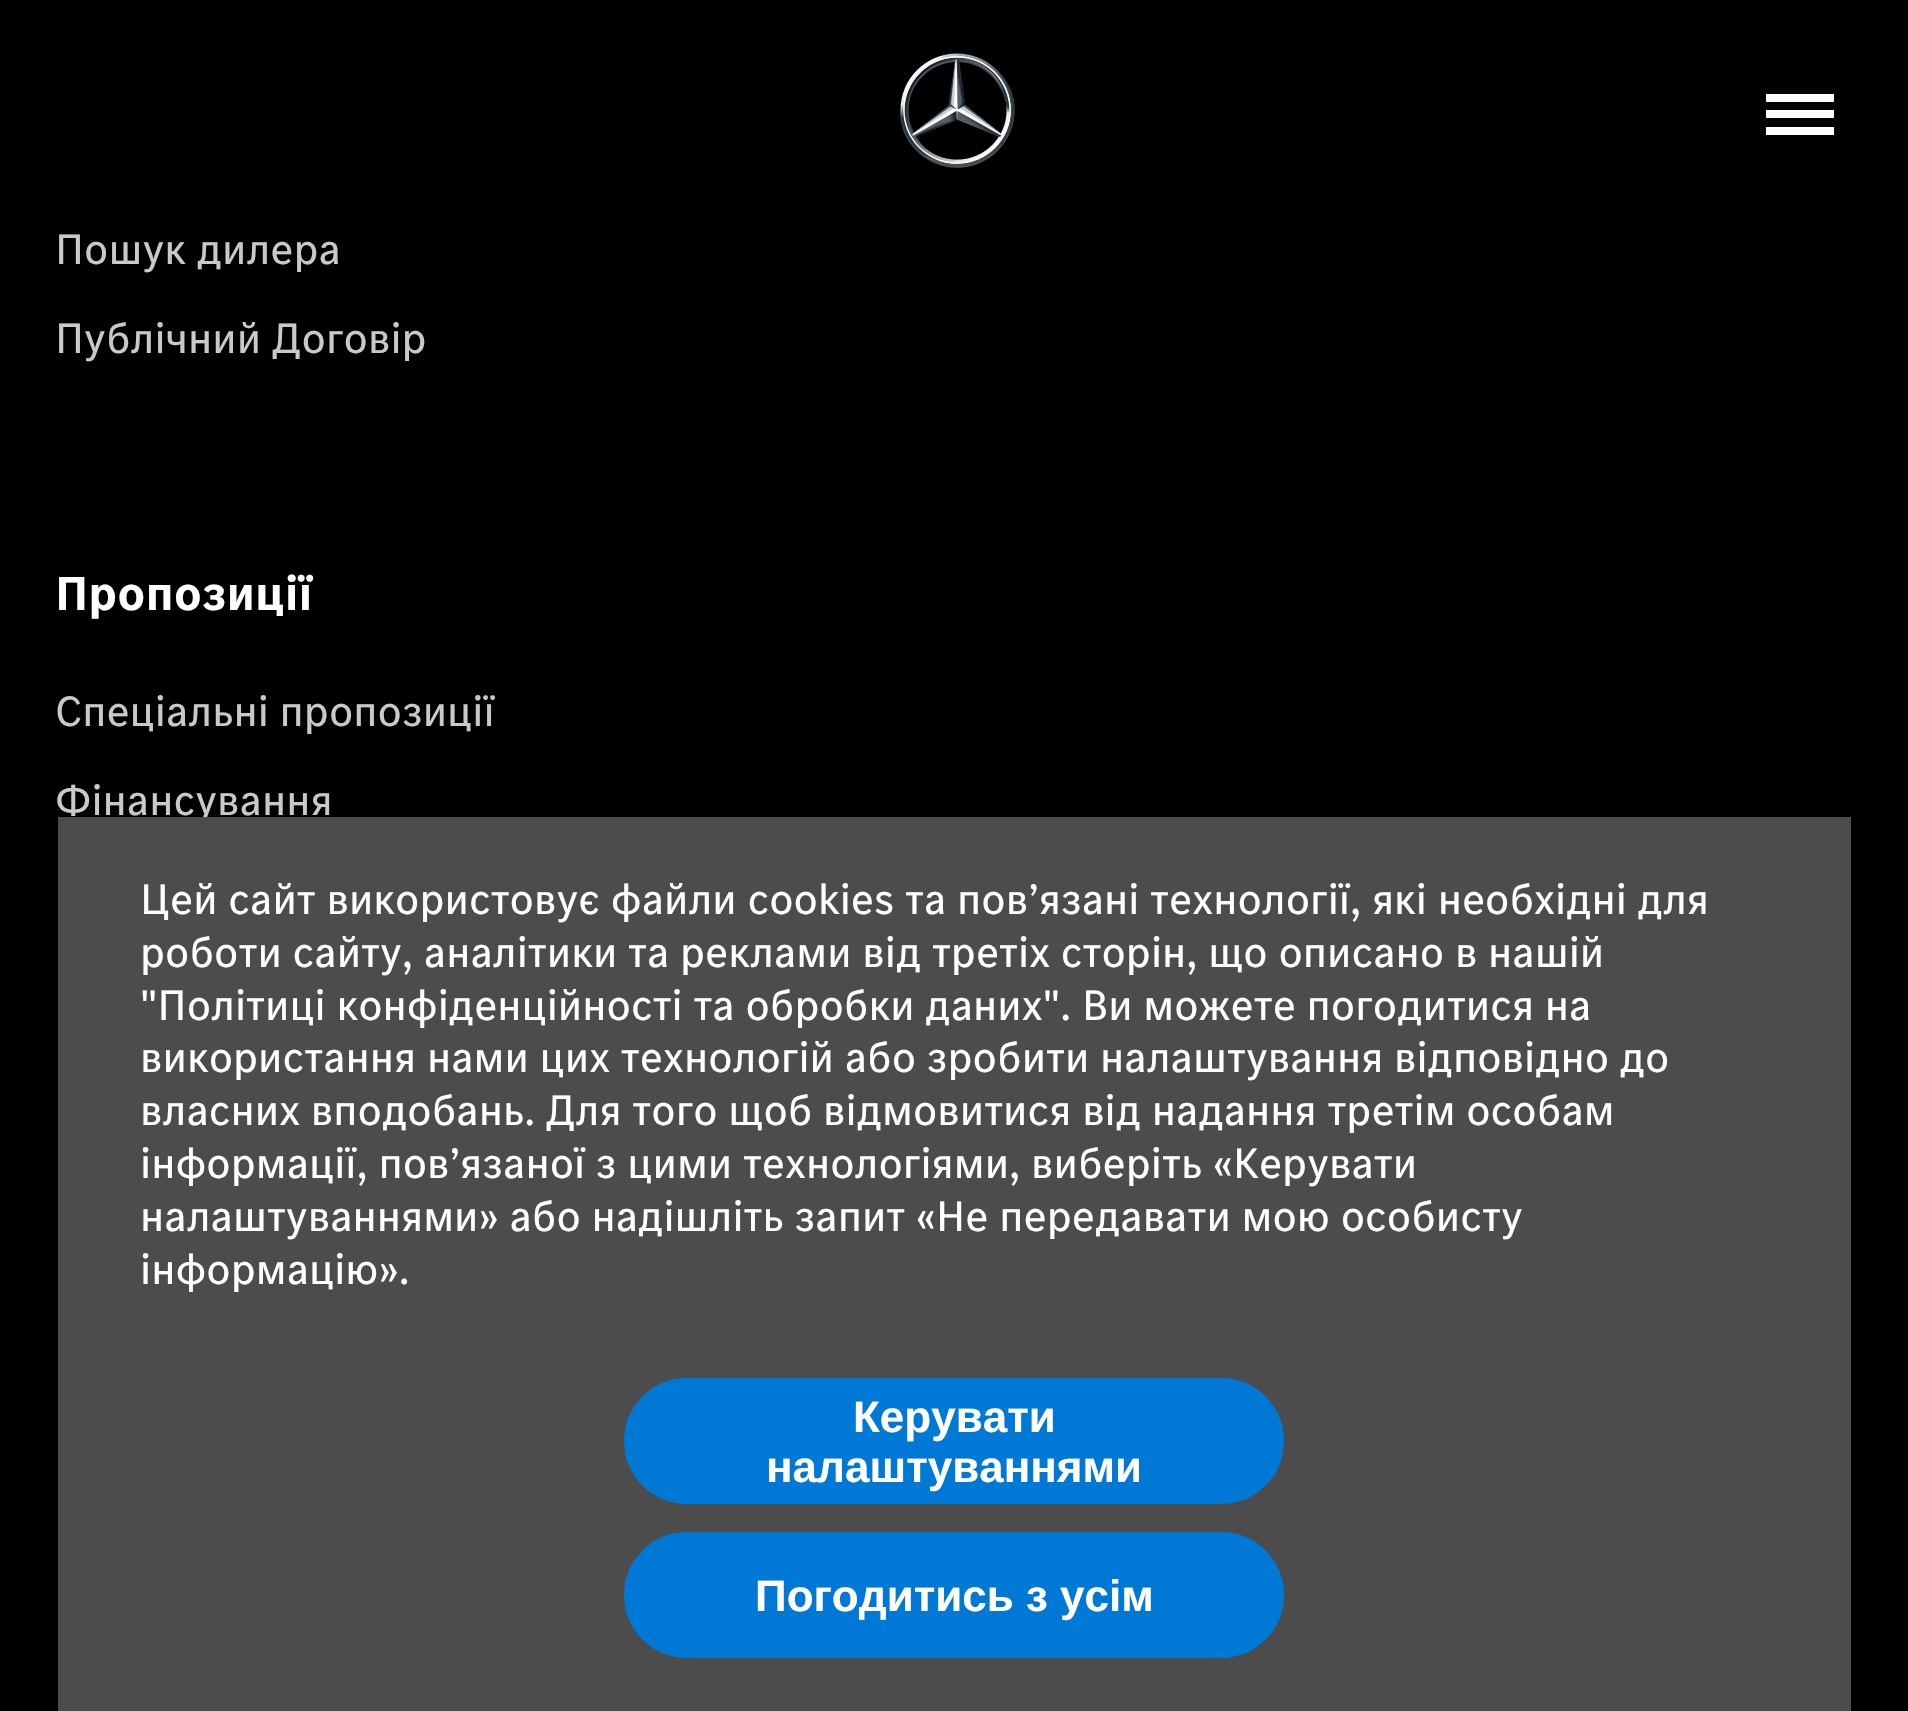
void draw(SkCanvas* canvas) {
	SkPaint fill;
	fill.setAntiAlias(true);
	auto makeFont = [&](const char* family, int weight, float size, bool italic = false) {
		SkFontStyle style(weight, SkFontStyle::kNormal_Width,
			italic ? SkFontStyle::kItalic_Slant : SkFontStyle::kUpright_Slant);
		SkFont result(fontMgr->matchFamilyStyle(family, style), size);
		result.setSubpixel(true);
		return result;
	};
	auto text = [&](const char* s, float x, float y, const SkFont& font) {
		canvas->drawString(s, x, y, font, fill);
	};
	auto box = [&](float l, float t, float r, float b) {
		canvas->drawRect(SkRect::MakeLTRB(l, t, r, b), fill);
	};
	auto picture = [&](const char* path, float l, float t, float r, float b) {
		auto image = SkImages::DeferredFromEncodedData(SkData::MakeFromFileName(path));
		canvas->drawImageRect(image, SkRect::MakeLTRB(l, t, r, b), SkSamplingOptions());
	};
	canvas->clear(0xFF000000);
	picture("image0.png", 899, 53, 1015, 168);
	fill.setColor(0xFFFFFFFF);
	box(1766, 127, 1834, 135);
	box(1766, 94, 1834, 102);
	box(1766, 110, 1834, 118);
	auto font1 = makeFont("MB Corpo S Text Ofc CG", 400, 44);
	fill.setColor(0xFFC9C9C9);
	text("Пошук дилера", 55, 264, font1);
	text("Публічний Договір", 55, 353, font1);
	auto font2 = makeFont("MB Corpo S Text Ofc CG", 700, 49.5f);
	fill.setColor(0xFFFFFFFF);
	text("Пропозиції", 55, 610, font2);
	fill.setColor(0xFFC9C9C9);
	text("Спеціальні пропозиції", 55, 726, font1);
	text("Фінансування", 55, 815, font1);
	fill.setColor(0xFF4B4C4B);
	box(58, 817, 1851, 1711);
	fill.setColor(0xFFFFFFFF);
	text("Цей сайт використовує файли cookies та пов’язані технології, які необхідні для", 140, 914, font1);
	text("роботи сайту, аналітики та реклами від третіх сторін, що описано в нашій", 140, 967, font1);
	text("\"Політиці конфіденційності та обробки даних\". Ви можете погодитися на", 140, 1020, font1);
	text("використання нами цих технологій або зробити налаштування відповідно до", 140, 1072, font1);
	text("власних вподобань. Для того щоб відмовитися від надання третім особам", 140, 1125, font1);
	text("інформації, пов’язаної з цими технологіями, виберіть «Керувати", 140, 1178, font1);
	text("налаштуваннями» або надішліть запит «Не передавати мою особисту", 140, 1231, font1);
	text("інформацію».", 140, 1284, font1);
	fill.setColor(0xFF0078D6);
	canvas->drawRoundRect(SkRect::MakeLTRB(625.5f, 1379.5f, 1282.5f, 1502.5f), 61.5f, 61.5f, fill);
	fill.setStyle(SkPaint::kStroke_Style);
	fill.setStrokeWidth(3);
	canvas->drawRoundRect(SkRect::MakeLTRB(625.5f, 1379.5f, 1282.5f, 1502.5f), 61.5f, 61.5f, fill);
	auto font3 = makeFont("Liberation Sans", 700, 44);
	fill.setStyle(SkPaint::kFill_Style);
	fill.setColor(0xFFFFFFFF);
	text("Керувати", 853, 1432, font3);
	text("налаштуваннями", 766, 1482, font3);
	fill.setColor(0xFF0078D6);
	canvas->drawRoundRect(SkRect::MakeLTRB(625.5f, 1533.5f, 1282.5f, 1656.5f), 61.5f, 61.5f, fill);
	fill.setStyle(SkPaint::kStroke_Style);
	canvas->drawRoundRect(SkRect::MakeLTRB(625.5f, 1533.5f, 1282.5f, 1656.5f), 61.5f, 61.5f, fill);
	fill.setStyle(SkPaint::kFill_Style);
	fill.setColor(0xFFFFFFFF);
	text("Погодитись з усім", 755, 1611, font3);
}
